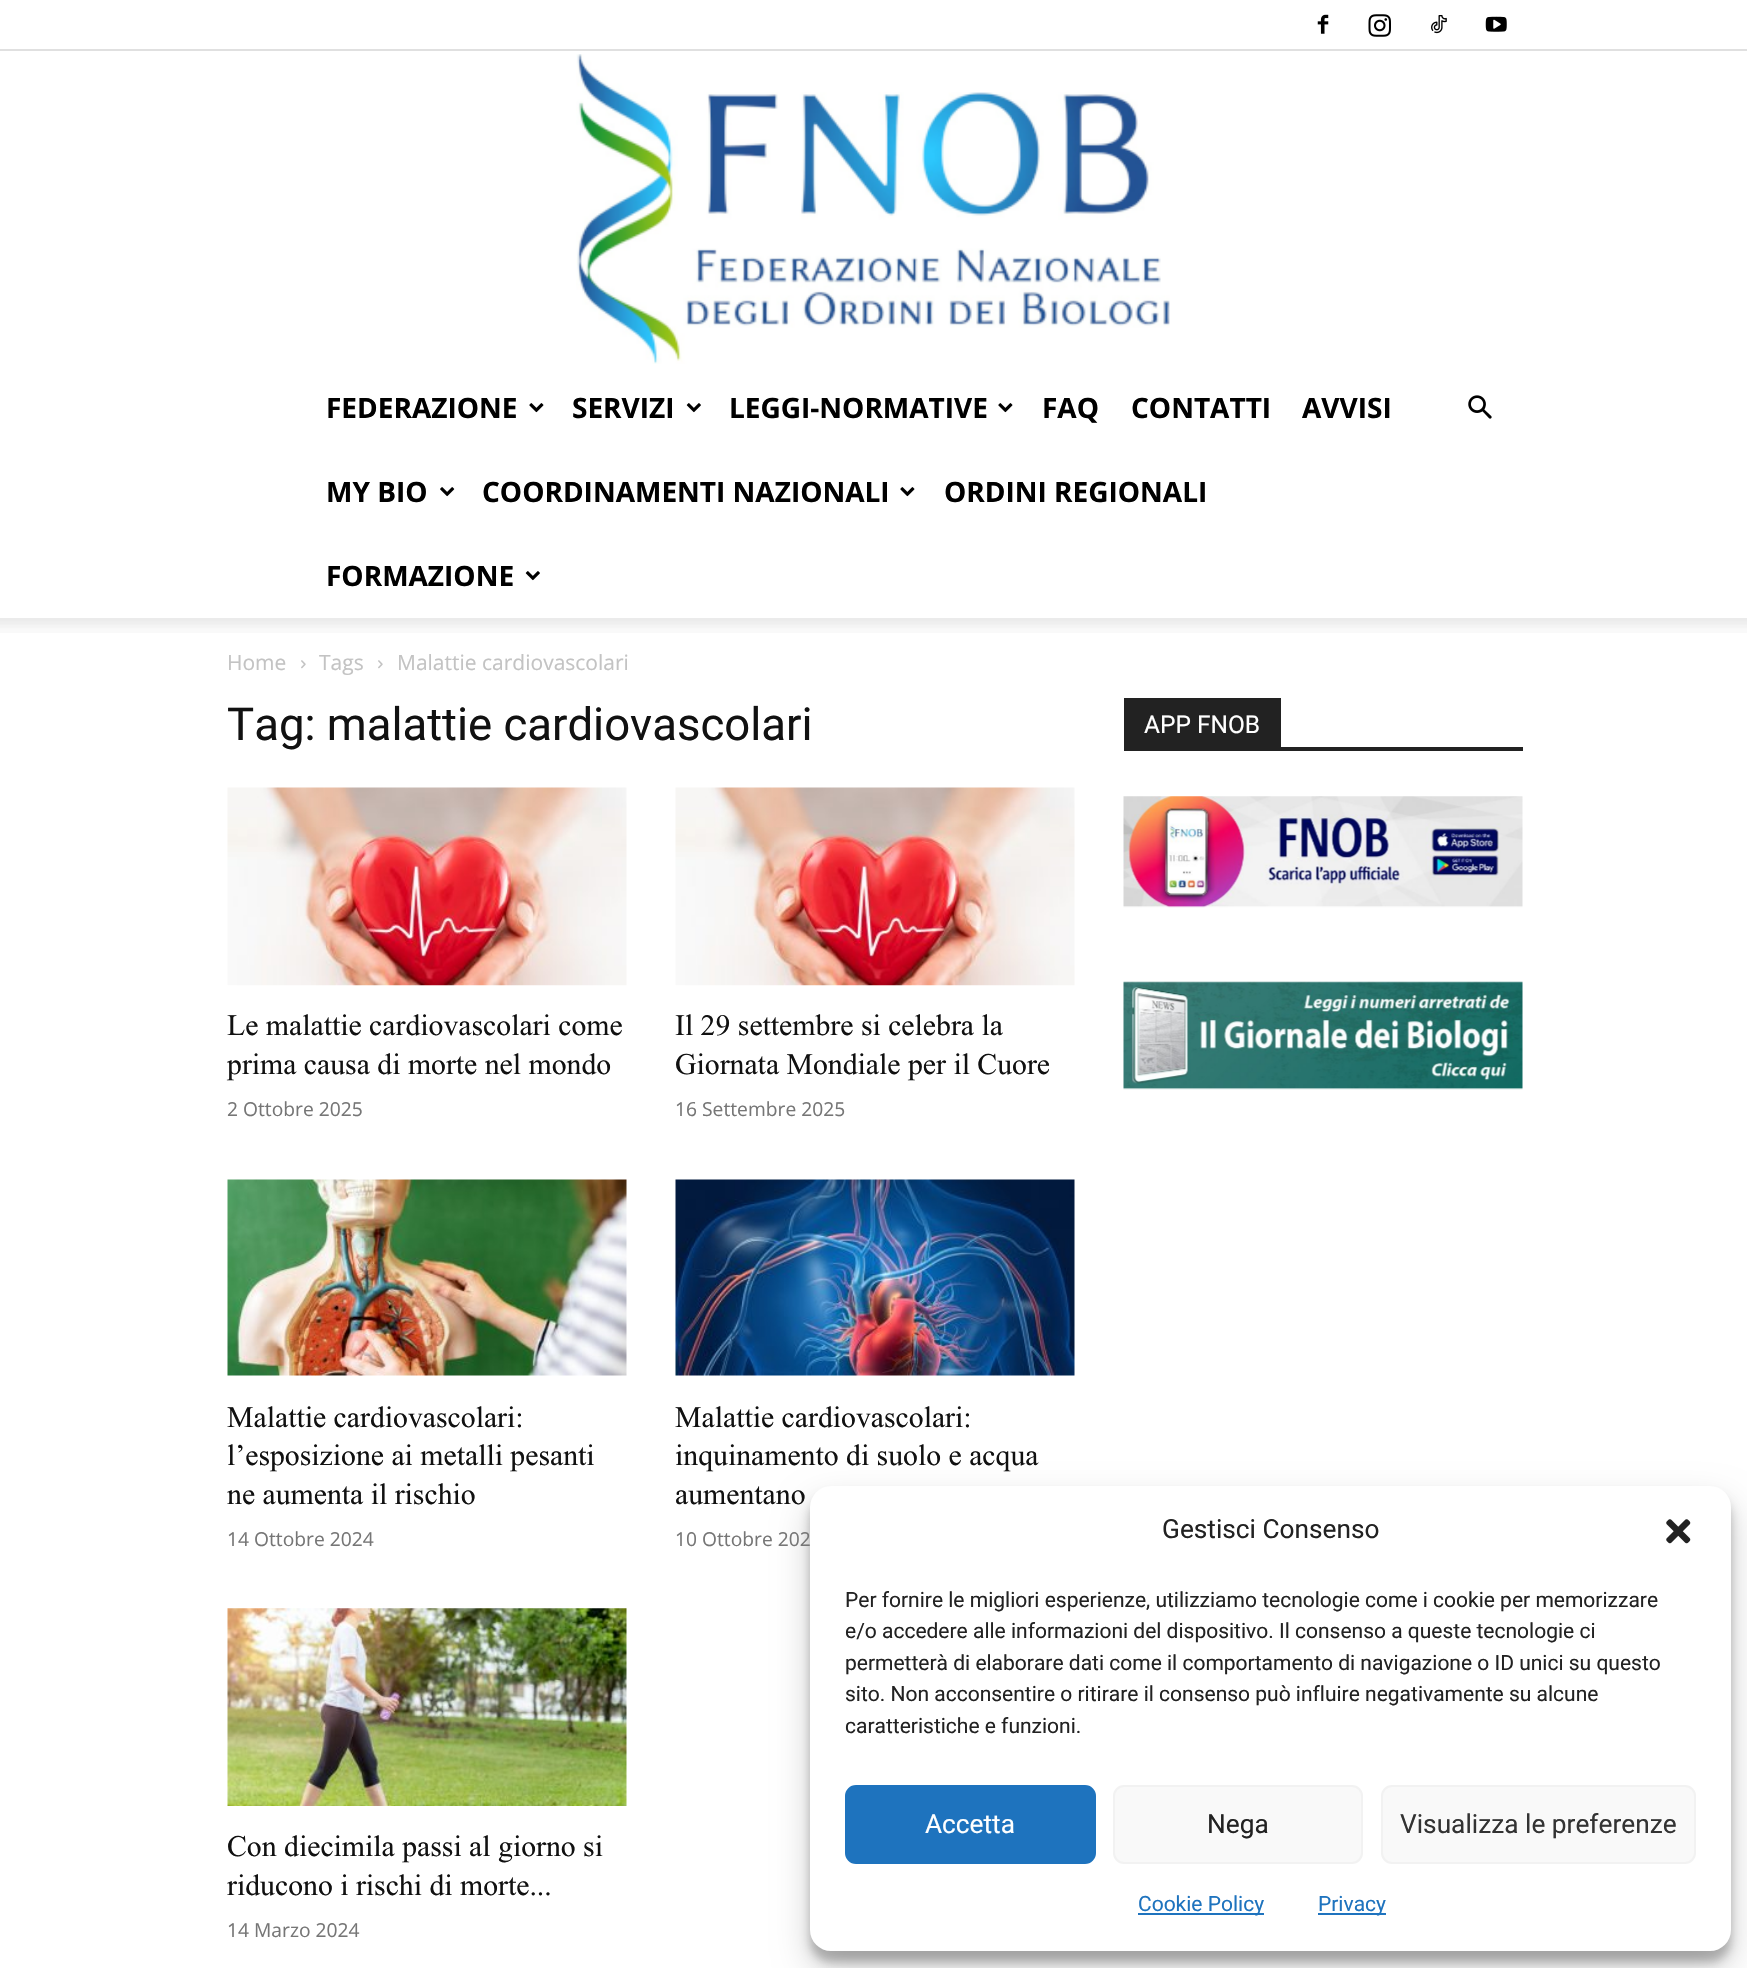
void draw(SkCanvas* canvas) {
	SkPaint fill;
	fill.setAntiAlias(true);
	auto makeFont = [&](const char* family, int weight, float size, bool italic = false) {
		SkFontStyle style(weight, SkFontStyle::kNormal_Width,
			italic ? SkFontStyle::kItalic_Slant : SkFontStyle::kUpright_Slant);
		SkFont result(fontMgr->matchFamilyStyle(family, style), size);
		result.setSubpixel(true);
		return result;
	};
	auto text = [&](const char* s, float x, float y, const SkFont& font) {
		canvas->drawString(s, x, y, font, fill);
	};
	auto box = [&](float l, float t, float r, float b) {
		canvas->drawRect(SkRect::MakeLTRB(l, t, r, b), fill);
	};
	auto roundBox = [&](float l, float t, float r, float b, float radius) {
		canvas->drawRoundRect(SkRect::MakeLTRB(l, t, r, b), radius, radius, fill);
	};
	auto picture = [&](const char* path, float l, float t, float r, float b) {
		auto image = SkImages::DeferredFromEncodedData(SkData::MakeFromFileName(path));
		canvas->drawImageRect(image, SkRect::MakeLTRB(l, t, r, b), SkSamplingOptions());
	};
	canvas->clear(0xFFFFFFFF);
	fill.setColor(0xFFE0E0E0);
	box(0, 49, 1747, 51);
	picture("image0.png", 1317, 14, 1329, 34);
	picture("image1.png", 1368, 14, 1391, 37);
	picture("image2.png", 1431, 15, 1447, 34);
	picture("image3.png", 1485, 16, 1507, 32);
	picture("image4.png", 576, 54, 1170, 364);
	picture("image5.png", 529, 403, 544, 413);
	picture("image6.png", 686, 403, 701, 413);
	picture("image5.png", 998, 403, 1013, 413);
	picture("image7.png", 440, 487, 455, 497);
	picture("image5.png", 900, 487, 915, 497);
	picture("image6.png", 525, 571, 540, 581);
	picture("image8.png", 1468, 395, 1492, 419);
	picture("image9.png", 0, 618, 1747, 633);
	picture("image10.png", 301, 660, 306, 669);
	picture("image10.png", 378, 660, 383, 669);
	picture("image11.png", 227, 787, 627, 986);
	picture("image11.png", 675, 787, 1075, 986);
	picture("image12.png", 227, 1179, 627, 1376);
	picture("image13.png", 675, 1179, 1075, 1376);
	picture("image14.png", 227, 1608, 627, 1806);
	fill.setColor(0xFF222222);
	box(1124, 747, 1523, 751);
	box(1124, 698, 1281, 747);
	picture("image15.png", 1123, 796, 1523, 908);
	picture("image16.png", 1123, 981, 1523, 1090);
	fill.setColor(0x3B000000);
	fill.setMaskFilter(SkMaskFilter::MakeBlur(kNormal_SkBlurStyle, 5));
	canvas->drawRoundRect(SkRect::MakeLTRB(810, 1496, 1731, 1962), 21, 21, fill);
	fill.setMaskFilter(nullptr);
	fill.setColor(0x30000000);
	fill.setMaskFilter(SkMaskFilter::MakeBlur(kNormal_SkBlurStyle, 17.5f));
	canvas->drawRoundRect(SkRect::MakeLTRB(810, 1503, 1731, 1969), 21, 21, fill);
	fill.setMaskFilter(nullptr);
	fill.setColor(0xFFFFFFFF);
	roundBox(810, 1486, 1731, 1951, 21);
	picture("image17.png", 1666, 1519, 1691, 1544);
	fill.setColor(0xFF1E73BE);
	canvas->drawRoundRect(SkRect::MakeLTRB(846, 1786, 1095, 1863), 10, 10, fill);
	fill.setStyle(SkPaint::kStroke_Style);
	fill.setStrokeWidth(2);
	canvas->drawRoundRect(SkRect::MakeLTRB(846, 1786, 1095, 1863), 10, 10, fill);
	fill.setStyle(SkPaint::kFill_Style);
	fill.setColor(0xFFF9F9F9);
	canvas->drawRoundRect(SkRect::MakeLTRB(1114, 1786, 1362, 1863), 10, 10, fill);
	fill.setStyle(SkPaint::kStroke_Style);
	fill.setColor(0xFFF2F2F2);
	canvas->drawRoundRect(SkRect::MakeLTRB(1114, 1786, 1362, 1863), 10, 10, fill);
	fill.setStyle(SkPaint::kFill_Style);
	fill.setColor(0xFFF9F9F9);
	canvas->drawRoundRect(SkRect::MakeLTRB(1382, 1786, 1695, 1863), 10, 10, fill);
	fill.setStyle(SkPaint::kStroke_Style);
	fill.setColor(0xFFF2F2F2);
	canvas->drawRoundRect(SkRect::MakeLTRB(1382, 1786, 1695, 1863), 10, 10, fill);
	fill.setStyle(SkPaint::kFill_Style);
	fill.setColor(0xFF1E73BE);
	box(1138, 1913, 1264, 1915);
	box(1318, 1913, 1386, 1915);
	auto font1 = makeFont("Open Sans", 700, 28);
	fill.setColor(0xFF000000);
	text("FEDERAZIONE", 326, 418, font1);
	text("SERVIZI", 572, 418, font1);
	text("LEGGI-NORMATIVE", 729, 418, font1);
	text("FAQ", 1042, 418, font1);
	text("CONTATTI", 1131, 418, font1);
	text("AVVISI", 1302, 418, font1);
	text("MY BIO", 326, 502, font1);
	text("COORDINAMENTI NAZIONALI", 482, 502, font1);
	text("ORDINI REGIONALI", 944, 502, font1);
	text("FORMAZIONE", 326, 586, font1);
	auto font2 = makeFont("Open Sans", 400, 21);
	fill.setColor(0xFFC3C3C3);
	text("Home", 227, 670, font2);
	text("Tags", 319, 670, font2);
	text("Malattie cardiovascolari", 397, 670, font2);
	auto font3 = makeFont("Roboto", 400, 45.5f);
	fill.setColor(0xFF111111);
	text("Tag: malattie cardiovascolari", 227, 740, font3);
	auto font4 = makeFont("Times New Roman", 400, 29.75f);
	text("Le malattie cardiovascolari come", 227, 1035, font4);
	text("prima causa di morte nel mondo", 227, 1074, font4);
	auto font5 = makeFont("Open Sans", 400, 19.25f);
	fill.setColor(0xFF767676);
	text("2 Ottobre 2025", 227, 1116, font5);
	fill.setColor(0xFF111111);
	text("Il 29 settembre si celebra la", 675, 1035, font4);
	text("Giornata Mondiale per il Cuore", 675, 1074, font4);
	fill.setColor(0xFF767676);
	text("16 Settembre 2025", 675, 1116, font5);
	fill.setColor(0xFF111111);
	text("Malattie cardiovascolari:", 227, 1427, font4);
	text("l’esposizione ai metalli pesanti", 227, 1465, font4);
	text("ne aumenta il rischio", 227, 1504, font4);
	fill.setColor(0xFF767676);
	text("14 Ottobre 2024", 227, 1546, font5);
	fill.setColor(0xFF111111);
	text("Malattie cardiovascolari:", 675, 1427, font4);
	text("inquinamento di suolo e acqua", 675, 1465, font4);
	text("aumentano", 675, 1504, font4);
	fill.setColor(0xFF767676);
	text("10 Ottobre 202", 675, 1546, font5);
	fill.setColor(0xFF111111);
	text("Con diecimila passi al giorno si", 227, 1856, font4);
	text("riducono i rischi di morte...", 227, 1895, font4);
	fill.setColor(0xFF767676);
	text("14 Marzo 2024", 227, 1937, font5);
	auto font6 = makeFont("Roboto", 400, 24.5f);
	fill.setColor(0xFFFFFFFF);
	text("APP FNOB", 1144, 733, font6);
	auto font7 = makeFont("Roboto", 400, 26.25f);
	fill.setColor(0xFF222222);
	text("Gestisci Consenso", 1162, 1538, font7);
	auto font8 = makeFont("Roboto", 400, 21);
	text("Per fornire le migliori esperienze, utilizziamo tecnologie come i cookie per memorizzare", 845, 1607, font8);
	text("e/o accedere alle informazioni del dispositivo. Il consenso a queste tecnologie ci", 845, 1638, font8);
	text("permetterà di elaborare dati come il comportamento di navigazione o ID unici su questo", 845, 1670, font8);
	text("sito. Non acconsentire o ritirare il consenso può influire negativamente su alcune", 845, 1701, font8);
	text("caratteristiche e funzioni.", 845, 1733, font8);
	fill.setColor(0xFFFFFFFF);
	text("Accetta", 925, 1833, font7);
	fill.setColor(0xFF222222);
	text("Nega", 1207, 1833, font7);
	fill.setColor(0xFF333333);
	text("Visualizza le preferenze", 1400, 1833, font7);
	fill.setColor(0xFF1E73BE);
	text("Cookie Policy", 1138, 1911, font8);
	text("Privacy", 1318, 1911, font8);
}
